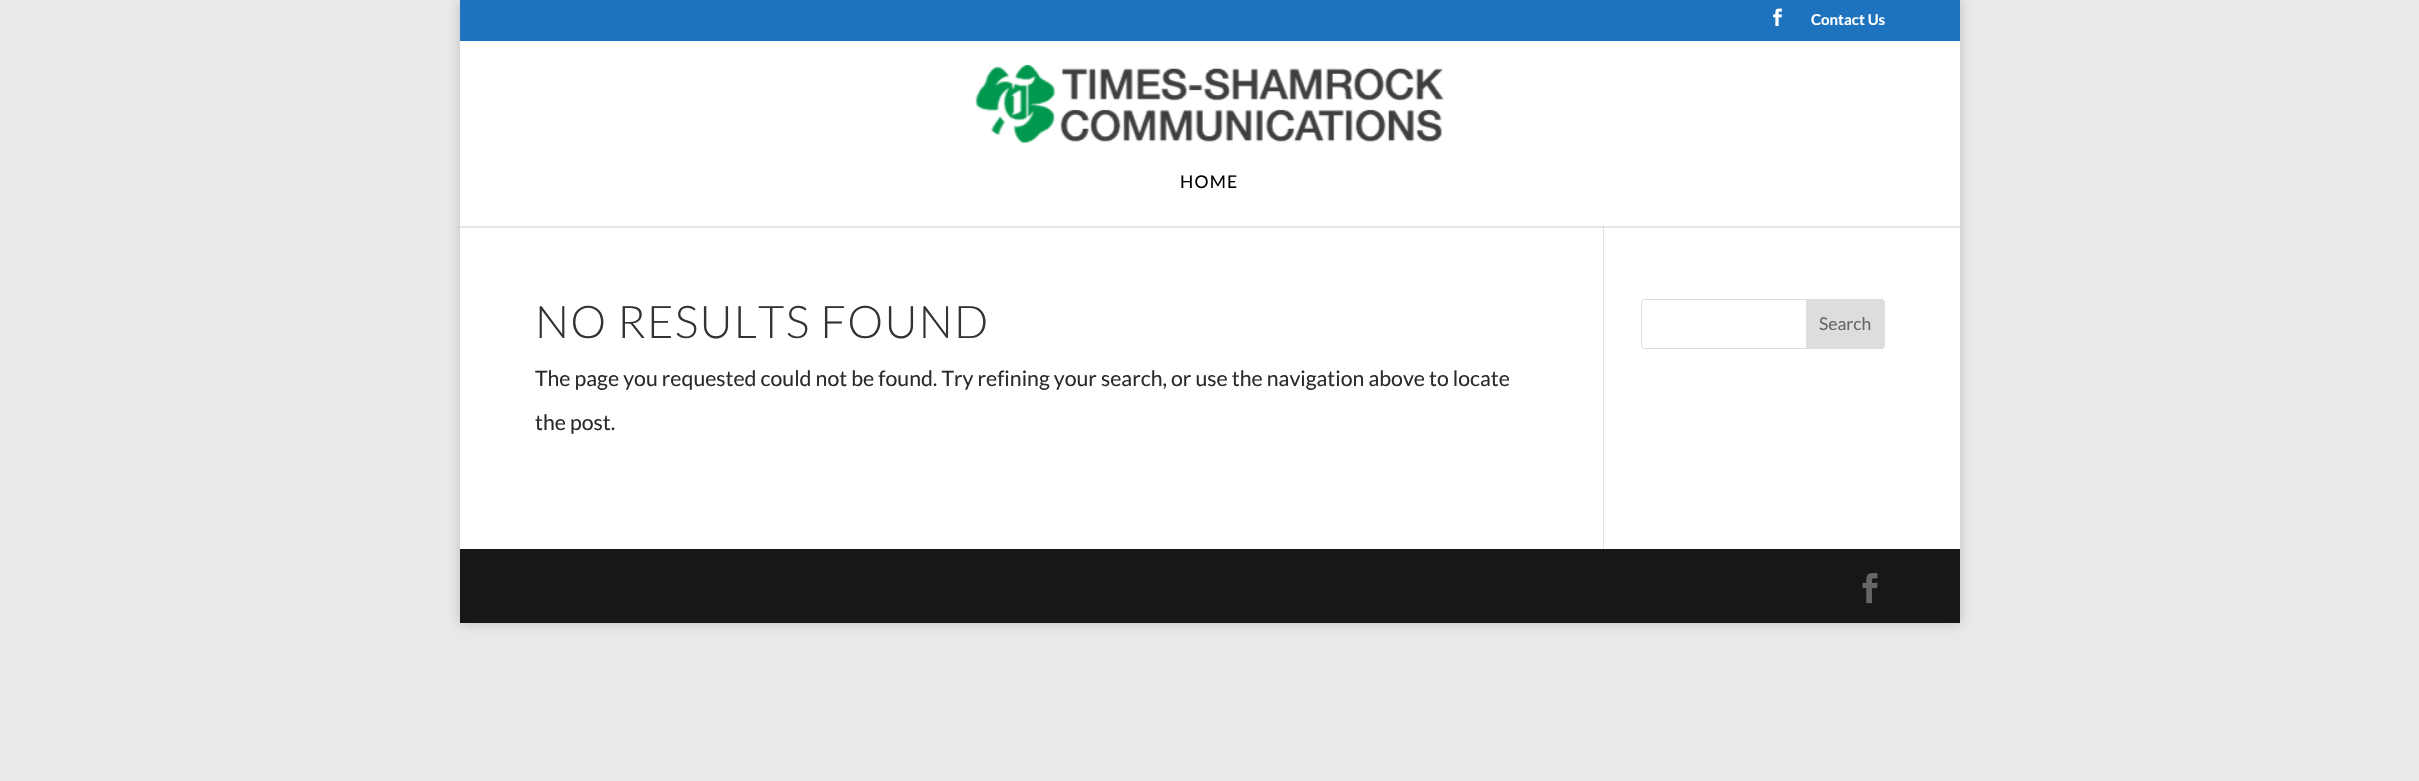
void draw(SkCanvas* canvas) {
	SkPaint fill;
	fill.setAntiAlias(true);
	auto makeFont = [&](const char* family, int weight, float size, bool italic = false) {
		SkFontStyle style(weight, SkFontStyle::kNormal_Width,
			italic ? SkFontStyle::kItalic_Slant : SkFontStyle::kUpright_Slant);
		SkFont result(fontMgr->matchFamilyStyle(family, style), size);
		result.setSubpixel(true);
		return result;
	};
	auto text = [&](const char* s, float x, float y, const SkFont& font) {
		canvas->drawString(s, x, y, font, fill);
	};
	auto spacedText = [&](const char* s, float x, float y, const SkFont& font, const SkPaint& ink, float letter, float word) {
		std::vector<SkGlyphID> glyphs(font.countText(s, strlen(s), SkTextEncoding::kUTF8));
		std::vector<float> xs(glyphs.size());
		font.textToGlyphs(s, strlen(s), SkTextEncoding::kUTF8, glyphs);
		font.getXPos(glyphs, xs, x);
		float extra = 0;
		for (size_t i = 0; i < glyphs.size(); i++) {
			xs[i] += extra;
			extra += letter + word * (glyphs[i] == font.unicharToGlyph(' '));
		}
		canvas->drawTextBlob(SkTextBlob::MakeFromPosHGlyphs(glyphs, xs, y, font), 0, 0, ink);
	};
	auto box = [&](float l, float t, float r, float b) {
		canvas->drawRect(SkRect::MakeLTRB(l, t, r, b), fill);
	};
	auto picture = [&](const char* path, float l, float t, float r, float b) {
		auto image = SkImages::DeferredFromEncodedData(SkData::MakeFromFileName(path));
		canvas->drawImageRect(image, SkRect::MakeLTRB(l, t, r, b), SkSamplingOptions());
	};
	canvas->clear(0xFFEAEAEA);
	fill.setColor(0x33000000);
	fill.setMaskFilter(SkMaskFilter::MakeBlur(kNormal_SkBlurStyle, 6));
	canvas->drawRect(SkRect::MakeLTRB(460, 0, 1960, 623), fill);
	fill.setMaskFilter(nullptr);
	fill.setColor(0xFF1E73BE);
	box(460, 0, 1960, 41);
	picture("image0.png", 1773, 8, 1782, 27);
	fill.setColor(0xFFFFFFFF);
	box(460, 41, 1960, 226);
	picture("image1.png", 975, 64, 1444, 143);
	box(460, 228, 1960, 549);
	fill.setColor(0xFFE6E6E6);
	box(460, 226, 1960, 228);
	fill.setColor(0xFFE2E2E2);
	box(1603, 226, 1604, 549);
	fill.setColor(0xFFCBCBCB);
	box(1603, 226, 1604, 228);
	fill.setStyle(SkPaint::kStroke_Style);
	fill.setStrokeWidth(1);
	fill.setColor(0xFFDDDDDD);
	canvas->drawRoundRect(SkRect::MakeLTRB(1641.5f, 299.5f, 1884.5f, 348.5f), 3.5f, 3.5f, fill);
	fill.setStyle(SkPaint::kFill_Style);
	canvas->drawPath(SkPathBuilder().moveTo(1806.5f, 299.5f).lineTo(1881, 299.5f).cubicTo(1883, 299.5f, 1884.5f, 301, 1884.5f, 303).lineTo(1884.5f, 345).cubicTo(1884.5f, 347, 1883, 348.5f, 1881, 348.5f).lineTo(1806.5f, 348.5f).close().detach(), fill);
	fill.setStyle(SkPaint::kStroke_Style);
	canvas->drawPath(SkPathBuilder().moveTo(1806.5f, 299.5f).lineTo(1881, 299.5f).cubicTo(1883, 299.5f, 1884.5f, 301, 1884.5f, 303).lineTo(1884.5f, 345).cubicTo(1884.5f, 347, 1883, 348.5f, 1881, 348.5f).lineTo(1806.5f, 348.5f).close().detach(), fill);
	fill.setStyle(SkPaint::kFill_Style);
	fill.setColor(0xFF171717);
	box(460, 549, 1960, 623);
	picture("image2.png", 1862, 573, 1878, 604);
	auto font1 = makeFont("Lato", 700, 15);
	fill.setColor(0xFFFFFFFF);
	text("Contact Us", 1811, 25, font1);
	auto font2 = makeFont("Lato", 400, 17.5f);
	fill.setColor(0xFF000000);
	spacedText("HOME", 1180, 188, font2, fill, 1.25f, 0);
	auto font3 = makeFont("Lato", 300, 45);
	fill.setColor(0xFF333333);
	spacedText("NO RESULTS FOUND", 535, 338, font3, fill, 1.25f, 0);
	auto font4 = makeFont("Lato", 400, 21.25f);
	fill.setColor(0xFF2B2B2B);
	text("The page you requested could not be found. Try refining your search, or use the navigation above to locate", 535, 386, font4);
	text("the post.", 535, 430, font4);
	fill.setColor(0xFF666666);
	text("Search", 1819, 330, font2);
}
